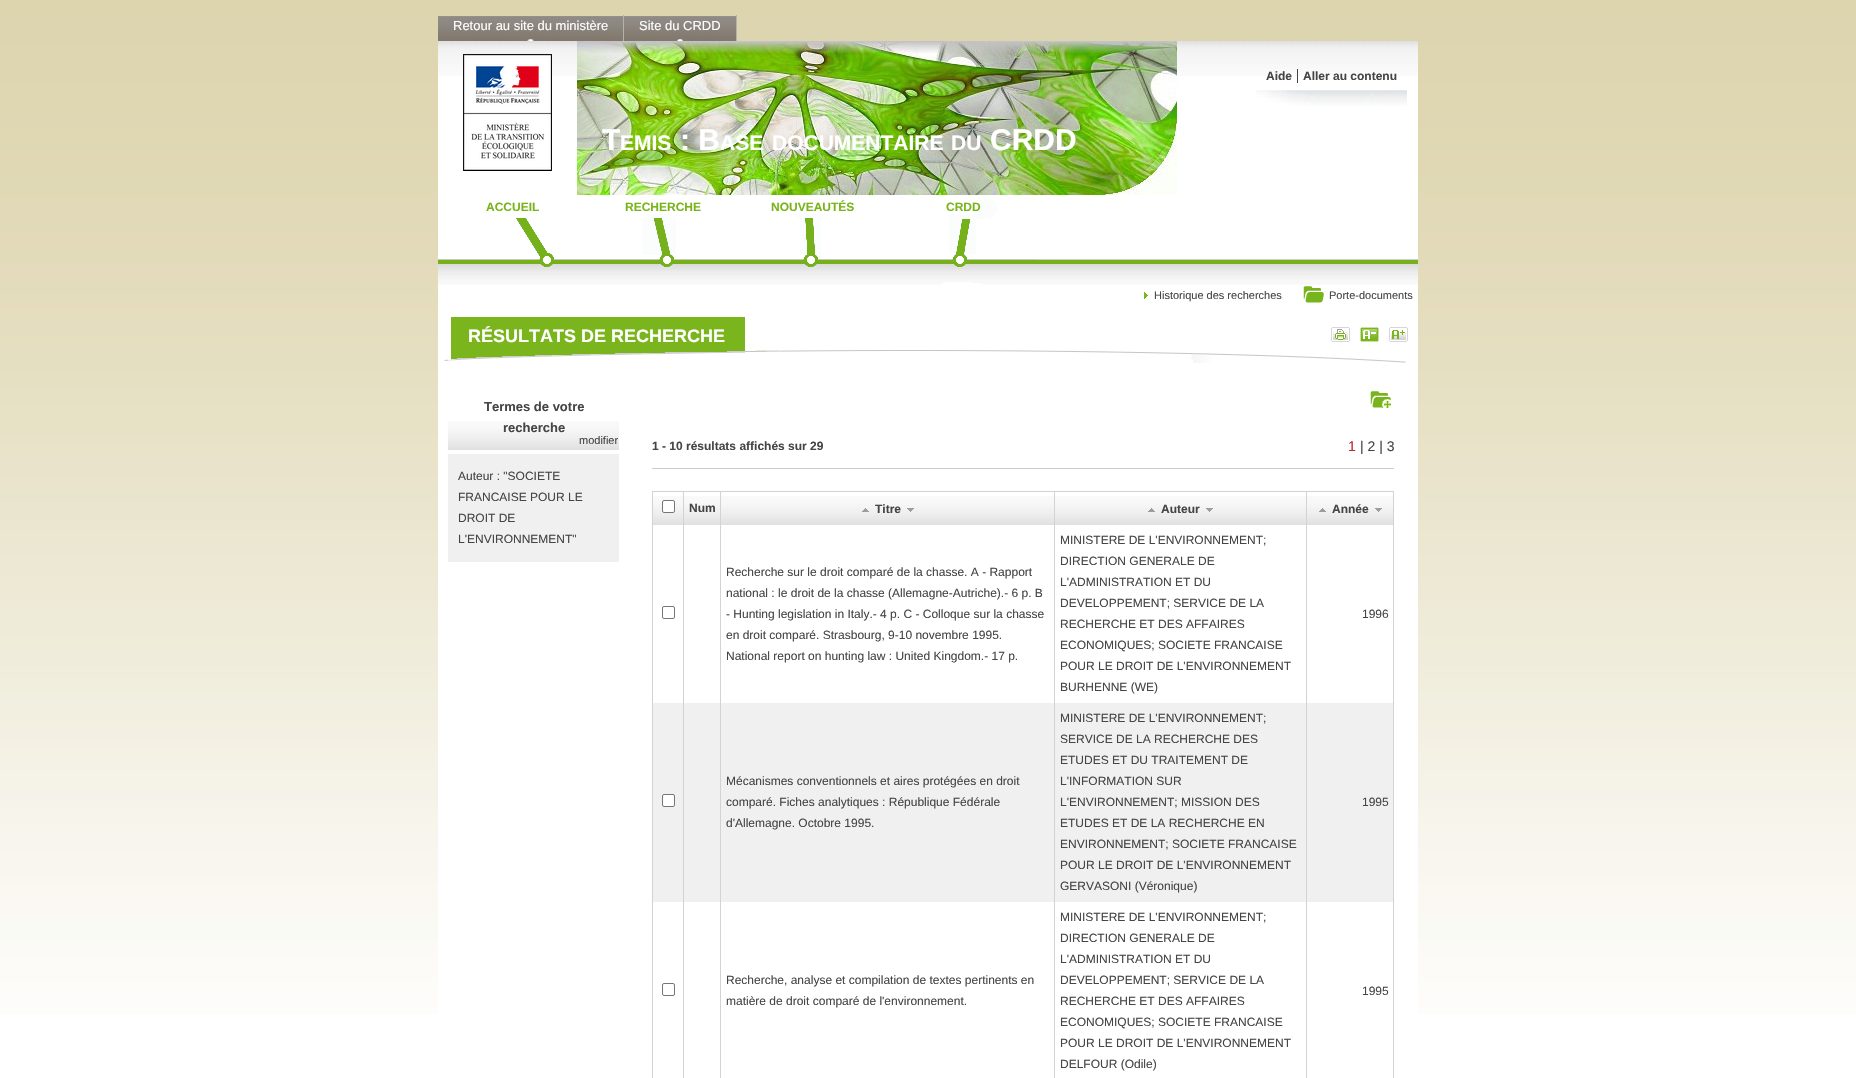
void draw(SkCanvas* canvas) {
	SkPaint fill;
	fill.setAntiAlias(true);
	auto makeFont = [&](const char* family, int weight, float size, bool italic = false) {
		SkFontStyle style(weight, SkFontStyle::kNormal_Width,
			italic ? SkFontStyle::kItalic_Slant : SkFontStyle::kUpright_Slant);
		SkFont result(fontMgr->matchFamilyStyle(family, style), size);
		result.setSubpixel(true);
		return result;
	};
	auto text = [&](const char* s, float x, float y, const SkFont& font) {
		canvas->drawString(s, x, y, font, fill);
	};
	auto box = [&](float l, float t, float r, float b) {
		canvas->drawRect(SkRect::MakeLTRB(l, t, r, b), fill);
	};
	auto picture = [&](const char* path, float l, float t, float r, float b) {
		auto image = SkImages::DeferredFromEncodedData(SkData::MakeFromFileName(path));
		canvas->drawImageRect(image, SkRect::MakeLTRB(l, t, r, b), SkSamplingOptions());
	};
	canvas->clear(0xFFFFFFFF);
	picture("image0.png", 0, 0, 1856, 1014);
	picture("image1.png", 438, 16, 623, 41);
	fill.setColor(0xFFB5B1AC);
	box(623, 15, 624, 41);
	picture("image2.png", 624, 16, 736, 41);
	box(736, 15, 737, 41);
	fill.setColor(0xFFFFFFFF);
	box(438, 76, 1418, 1014);
	picture("image3.png", 438, 41, 1418, 76);
	picture("image4.png", 463, 54, 552, 171);
	picture("image5.png", 1256, 90, 1407, 106);
	fill.setColor(0xFF444444);
	box(1297, 69, 1298, 83);
	picture("image6.png", 577, 41, 1177, 195);
	picture("image7.png", 438, 259, 1418, 285);
	picture("image8.png", 438, 197, 588, 267);
	picture("image9.png", 588, 197, 738, 267);
	fill.setColor(0xFFFFFFFF);
	box(643, 200, 674, 214);
	picture("image10.png", 738, 197, 888, 267);
	box(792, 200, 830, 214);
	picture("image11.png", 888, 197, 1038, 285);
	box(948, 200, 980, 214);
	picture("image12.png", 1144, 292, 1148, 299);
	picture("image13.png", 1303, 286, 1324, 303);
	picture("image14.png", 444, 350, 1406, 363);
	fill.setColor(0xFF7AB51E);
	box(451, 317, 745, 359);
	picture("image15.png", 448, 317, 745, 361);
	picture("image16.png", 1331, 327, 1350, 342);
	picture("image17.png", 1360, 327, 1379, 342);
	picture("image18.png", 1389, 327, 1408, 342);
	picture("image19.png", 448, 421, 619, 450);
	fill.setColor(0xFFF0F0F0);
	box(448, 454, 619, 562);
	picture("image20.png", 1370, 391, 1391, 408);
	fill.setColor(0xFFCCCCCC);
	box(652, 468, 1394, 469);
	fill.setColor(0xFFD3D3D3);
	box(652, 491, 1394, 492);
	box(1393, 491, 1394, 1078);
	box(652, 491, 653, 1078);
	picture("image21.png", 653, 496, 683, 525);
	fill.setColor(0xFFFFFFFF);
	canvas->drawRoundRect(SkRect::MakeLTRB(662.5f, 500.5f, 674.5f, 512.5f), 1.5f, 1.5f, fill);
	fill.setStyle(SkPaint::kStroke_Style);
	fill.setStrokeWidth(1);
	fill.setColor(0xFF767676);
	canvas->drawRoundRect(SkRect::MakeLTRB(662.5f, 500.5f, 674.5f, 512.5f), 1.5f, 1.5f, fill);
	picture("image22.png", 684, 496, 720, 525);
	picture("image23.png", 721, 496, 1054, 525);
	picture("image24.png", 862, 508, 869, 512);
	picture("image25.png", 907, 508, 914, 512);
	picture("image26.png", 1055, 496, 1306, 525);
	picture("image24.png", 1148, 508, 1155, 512);
	picture("image25.png", 1206, 508, 1213, 512);
	picture("image27.png", 1307, 496, 1393, 525);
	picture("image24.png", 1319, 508, 1326, 512);
	picture("image25.png", 1375, 508, 1382, 512);
	canvas->drawRoundRect(SkRect::MakeLTRB(662.5f, 606.5f, 674.5f, 618.5f), 1.5f, 1.5f, fill);
	fill.setStyle(SkPaint::kFill_Style);
	fill.setColor(0xFFF0F0F0);
	box(653, 703, 1393, 902);
	fill.setColor(0xFFFFFFFF);
	canvas->drawRoundRect(SkRect::MakeLTRB(662.5f, 794.5f, 674.5f, 806.5f), 1.5f, 1.5f, fill);
	fill.setStyle(SkPaint::kStroke_Style);
	fill.setColor(0xFF767676);
	canvas->drawRoundRect(SkRect::MakeLTRB(662.5f, 794.5f, 674.5f, 806.5f), 1.5f, 1.5f, fill);
	canvas->drawRoundRect(SkRect::MakeLTRB(662.5f, 983.5f, 674.5f, 995.5f), 1.5f, 1.5f, fill);
	fill.setStyle(SkPaint::kFill_Style);
	fill.setColor(0xFFD3D3D3);
	box(683, 491, 684, 1078);
	box(720, 491, 721, 1078);
	box(1054, 491, 1055, 1078);
	box(1306, 491, 1307, 1078);
	auto font1 = makeFont("Liberation Sans", 400, 13);
	fill.setColor(0xFFFFFFFF);
	text("Retour au site du ministère", 453, 30, font1);
	text("Site du CRDD", 639, 30, font1);
	auto font2 = makeFont("Liberation Sans", 700, 12);
	fill.setColor(0xFF454545);
	text("Aide", 1266, 80, font2);
	text("Aller au contenu", 1303, 80, font2);
	auto font3 = makeFont("Liberation Sans", 700, 30);
	fill.setColor(0xFFFFFFFF);
	text("T", 602, 150, font3);
	auto font4 = makeFont("Liberation Sans", 700, 21);
	text("EMIS", 620, 150, font4);
	text(": B", 680, 150, font3);
	text("ASE", 720, 150, font4);
	text("DOCUMENTAIRE", 772, 150, font4);
	text("DU", 951, 150, font4);
	text("CRDD", 990, 150, font3);
	fill.setColor(0xFF79B41A);
	text("ACCUEIL", 486, 211, font2);
	text("RECHERCHE", 625, 211, font2);
	text("NOUVEAUTÉS", 771, 211, font2);
	text("CRDD", 946, 211, font2);
	auto font5 = makeFont("Liberation Sans", 400, 11);
	fill.setColor(0xFF454545);
	text("Historique des recherches", 1154, 299, font5);
	text("Porte-documents", 1329, 299, font5);
	auto font6 = makeFont("Liberation Sans", 700, 18);
	fill.setColor(0xFFFFFFFF);
	text("RÉSULTATS DE RECHERCHE", 468, 342, font6);
	auto font7 = makeFont("Liberation Sans", 700, 13);
	fill.setColor(0xFF454545);
	text("Termes de votre", 484, 411, font7);
	text("recherche", 503, 432, font7);
	text("modifier", 579, 444, font5);
	auto font8 = makeFont("Liberation Sans", 400, 12);
	text("Auteur : \"SOCIETE", 458, 480, font8);
	text("FRANCAISE POUR LE", 458, 501, font8);
	text("DROIT DE", 458, 522, font8);
	text("L'ENVIRONNEMENT\"", 458, 543, font8);
	text("1 - 10 résultats affichés sur 29", 652, 450, font2);
	auto font9 = makeFont("Liberation Sans", 400, 14);
	fill.setColor(0xFFB82A2A);
	text("1", 1348, 451, font9);
	fill.setColor(0xFF454545);
	text("| 2 | 3", 1360, 451, font9);
	text("Num", 689, 512, font2);
	text("Titre", 875, 513, font2);
	text("Auteur", 1161, 513, font2);
	text("Année", 1332, 513, font2);
	text("Recherche sur le droit comparé de la chasse. A - Rapport", 726, 576, font8);
	text("national : le droit de la chasse (Allemagne-Autriche).- 6 p. B", 726, 597, font8);
	text("- Hunting legislation in Italy.- 4 p. C - Colloque sur la chasse", 726, 618, font8);
	text("en droit comparé. Strasbourg, 9-10 novembre 1995.", 726, 639, font8);
	text("National report on hunting law : United Kingdom.- 17 p.", 726, 660, font8);
	text("MINISTERE DE L'ENVIRONNEMENT;", 1060, 544, font8);
	text("DIRECTION GENERALE DE", 1060, 565, font8);
	text("L'ADMINISTRATION ET DU", 1060, 586, font8);
	text("DEVELOPPEMENT; SERVICE DE LA", 1060, 607, font8);
	text("RECHERCHE ET DES AFFAIRES", 1060, 628, font8);
	text("ECONOMIQUES; SOCIETE FRANCAISE", 1060, 649, font8);
	text("POUR LE DROIT DE L'ENVIRONNEMENT", 1060, 670, font8);
	text("BURHENNE (WE)", 1060, 691, font8);
	text("1996", 1362, 618, font8);
	text("Mécanismes conventionnels et aires protégées en droit", 726, 785, font8);
	text("comparé. Fiches analytiques : République Fédérale", 726, 806, font8);
	text("d'Allemagne. Octobre 1995.", 726, 827, font8);
	text("MINISTERE DE L'ENVIRONNEMENT;", 1060, 722, font8);
	text("SERVICE DE LA RECHERCHE DES", 1060, 743, font8);
	text("ETUDES ET DU TRAITEMENT DE", 1060, 764, font8);
	text("L'INFORMATION SUR", 1060, 785, font8);
	text("L'ENVIRONNEMENT; MISSION DES", 1060, 806, font8);
	text("ETUDES ET DE LA RECHERCHE EN", 1060, 827, font8);
	text("ENVIRONNEMENT; SOCIETE FRANCAISE", 1060, 848, font8);
	text("POUR LE DROIT DE L'ENVIRONNEMENT", 1060, 869, font8);
	text("GERVASONI (Véronique)", 1060, 890, font8);
	text("1995", 1362, 806, font8);
	text("Recherche, analyse et compilation de textes pertinents en", 726, 984, font8);
	text("matière de droit comparé de l'environnement.", 726, 1005, font8);
	text("MINISTERE DE L'ENVIRONNEMENT;", 1060, 921, font8);
	text("DIRECTION GENERALE DE", 1060, 942, font8);
	text("L'ADMINISTRATION ET DU", 1060, 963, font8);
	text("DEVELOPPEMENT; SERVICE DE LA", 1060, 984, font8);
	text("RECHERCHE ET DES AFFAIRES", 1060, 1005, font8);
	text("ECONOMIQUES; SOCIETE FRANCAISE", 1060, 1026, font8);
	text("POUR LE DROIT DE L'ENVIRONNEMENT", 1060, 1047, font8);
	text("DELFOUR (Odile)", 1060, 1068, font8);
	text("1995", 1362, 995, font8);
}
